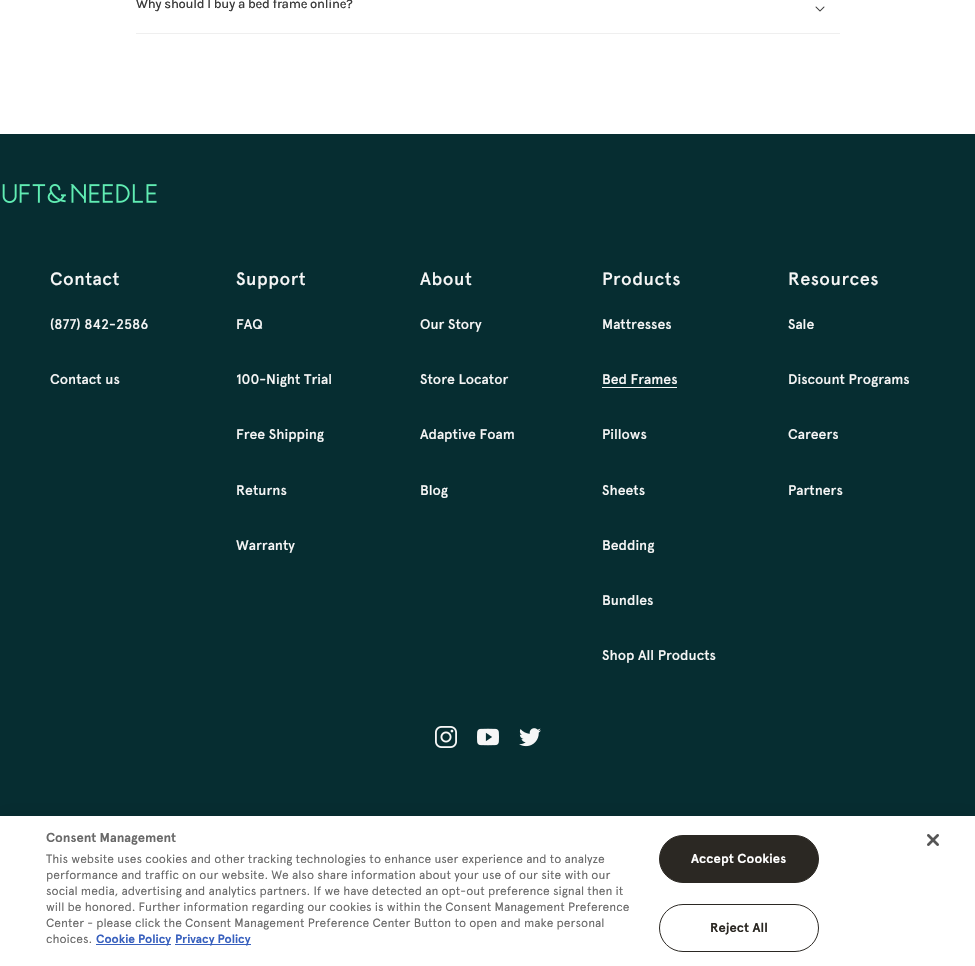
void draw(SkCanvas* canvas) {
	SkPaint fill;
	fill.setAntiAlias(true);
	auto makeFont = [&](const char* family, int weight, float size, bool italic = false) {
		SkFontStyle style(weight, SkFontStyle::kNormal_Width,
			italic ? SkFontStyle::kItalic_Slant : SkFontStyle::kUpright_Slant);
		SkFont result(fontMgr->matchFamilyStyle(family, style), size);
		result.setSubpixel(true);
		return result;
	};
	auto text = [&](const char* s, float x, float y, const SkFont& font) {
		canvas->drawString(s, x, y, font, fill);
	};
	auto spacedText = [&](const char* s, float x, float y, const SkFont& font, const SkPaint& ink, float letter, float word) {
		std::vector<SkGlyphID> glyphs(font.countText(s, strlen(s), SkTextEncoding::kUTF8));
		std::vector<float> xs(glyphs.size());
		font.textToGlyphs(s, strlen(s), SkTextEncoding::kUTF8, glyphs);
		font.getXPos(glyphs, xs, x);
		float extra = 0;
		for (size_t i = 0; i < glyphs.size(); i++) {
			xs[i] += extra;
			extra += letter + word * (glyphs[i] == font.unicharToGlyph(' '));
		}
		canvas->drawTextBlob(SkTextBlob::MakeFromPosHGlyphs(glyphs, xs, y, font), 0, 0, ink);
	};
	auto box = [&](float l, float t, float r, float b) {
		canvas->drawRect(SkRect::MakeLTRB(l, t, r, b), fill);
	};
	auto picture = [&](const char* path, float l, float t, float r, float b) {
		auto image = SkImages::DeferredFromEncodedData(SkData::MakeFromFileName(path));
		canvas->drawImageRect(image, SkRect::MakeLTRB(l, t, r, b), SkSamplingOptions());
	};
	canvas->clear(0xFFFFFFFF);
	fill.setColor(0xFFEFEFEF);
	box(136, 33, 840, 34);
	picture("image0.png", 815, 6, 825, 12);
	fill.setColor(0xFF062D31);
	box(0, 134, 975, 816);
	picture("image1.png", 2, 184, 157, 203);
	fill.setColor(0xFFF6F6F6);
	box(602, 387, 677, 388);
	picture("image2.png", 435, 726, 457, 748);
	picture("image3.png", 477, 728, 499, 746);
	picture("image4.png", 519, 728, 541, 747);
	fill.setColor(0x1A000000);
	fill.setMaskFilter(SkMaskFilter::MakeBlur(kNormal_SkBlurStyle, 9));
	canvas->drawRect(SkRect::MakeLTRB(0, 816, 975, 966), fill);
	fill.setMaskFilter(nullptr);
	fill.setColor(0xFFFFFFFF);
	box(0, 816, 975, 966);
	fill.setColor(0xFF3860BE);
	box(96, 944, 171, 945);
	box(175, 944, 251, 945);
	fill.setColor(0xFF2B2823);
	canvas->drawRoundRect(SkRect::MakeLTRB(659.5f, 835.5f, 818.5f, 882.5f), 23.5f, 23.5f, fill);
	fill.setStyle(SkPaint::kStroke_Style);
	fill.setStrokeWidth(1);
	canvas->drawRoundRect(SkRect::MakeLTRB(659.5f, 835.5f, 818.5f, 882.5f), 23.5f, 23.5f, fill);
	canvas->drawRoundRect(SkRect::MakeLTRB(659.5f, 904.5f, 818.5f, 951.5f), 23.5f, 23.5f, fill);
	picture("image5.png", 927, 834, 939, 846);
	auto font1 = makeFont("karla", 500, 13);
	fill.setStyle(SkPaint::kFill_Style);
	fill.setColor(0xFF3A3A3A);
	spacedText("Why should I buy a bed frame online?", 136, 8, font1, fill, -0.25f, 0);
	auto font2 = makeFont("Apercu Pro", 500, 18);
	fill.setColor(0xFFF6F6F6);
	spacedText("Contact", 50, 285, font2, fill, 0.5f, 0);
	auto font3 = makeFont("Apercu Pro", 500, 14);
	text("(877) 842-2586", 50, 329, font3);
	text("Contact us", 50, 384, font3);
	spacedText("Support", 236, 285, font2, fill, 0.5f, 0);
	text("FAQ", 236, 329, font3);
	text("100-Night Trial", 236, 384, font3);
	text("Free Shipping", 236, 439, font3);
	text("Returns", 236, 495, font3);
	text("Warranty", 236, 550, font3);
	spacedText("About", 420, 285, font2, fill, 0.5f, 0);
	text("Our Story", 420, 329, font3);
	text("Store Locator", 420, 384, font3);
	text("Adaptive Foam", 420, 439, font3);
	text("Blog", 420, 495, font3);
	spacedText("Products", 602, 285, font2, fill, 0.5f, 0);
	text("Mattresses", 602, 329, font3);
	text("Bed Frames", 602, 384, font3);
	text("Pillows", 602, 439, font3);
	text("Sheets", 602, 495, font3);
	text("Bedding", 602, 550, font3);
	text("Bundles", 602, 605, font3);
	text("Shop All Products", 602, 660, font3);
	spacedText("Resources", 788, 285, font2, fill, 0.5f, 0);
	text("Sale", 788, 329, font3);
	text("Discount Programs", 788, 384, font3);
	text("Careers", 788, 439, font3);
	text("Partners", 788, 495, font3);
	auto font4 = makeFont("Apercu Pro", 700, 13);
	fill.setColor(0xFF696969);
	text("Consent Management", 46, 842, font4);
	auto font5 = makeFont("Apercu Pro", 400, 12);
	text("This website uses cookies and other tracking technologies to enhance user experience and to analyze", 46, 863, font5);
	text("performance and traffic on our website. We also share information about your use of our site with our", 46, 879, font5);
	text("social media, advertising and analytics partners. If we have detected an opt-out preference signal then it", 46, 895, font5);
	text("will be honored. Further information regarding our cookies is within the Consent Management Preference", 46, 911, font5);
	text("Center - please click the Consent Management Preference Center Button to open and make personal", 46, 927, font5);
	text("choices.", 46, 943, font5);
	auto font6 = makeFont("Apercu Pro", 700, 12);
	fill.setColor(0xFF3860BE);
	text("Cookie Policy", 96, 943, font6);
	text("Privacy Policy", 175, 943, font6);
	fill.setColor(0xFFFFFFFF);
	spacedText("Accept Cookies", 691, 863, font4, fill, 0.1f, 0);
	fill.setColor(0xFF2B2823);
	spacedText("Reject All", 710, 932, font4, fill, 0.1f, 0);
}
